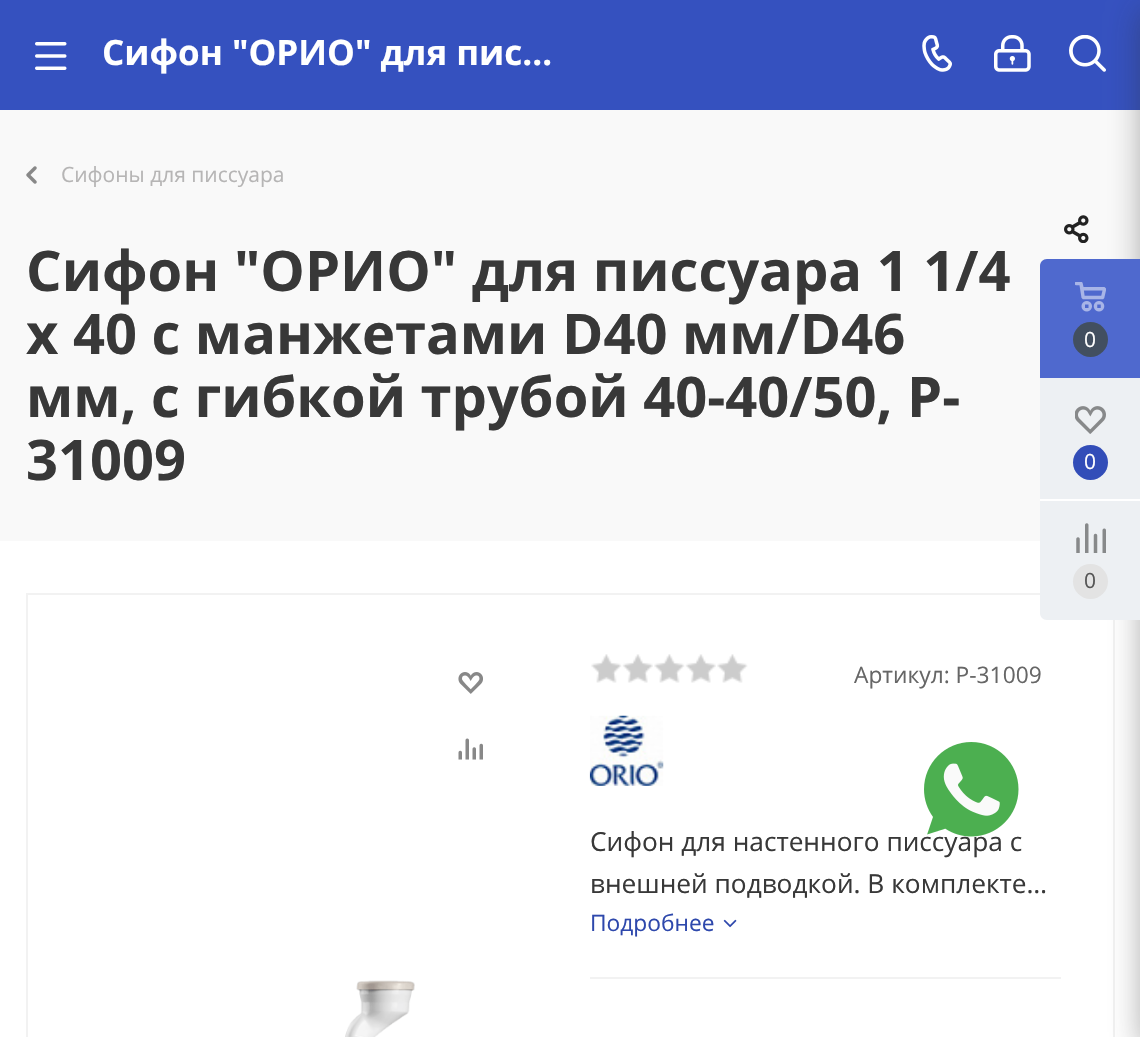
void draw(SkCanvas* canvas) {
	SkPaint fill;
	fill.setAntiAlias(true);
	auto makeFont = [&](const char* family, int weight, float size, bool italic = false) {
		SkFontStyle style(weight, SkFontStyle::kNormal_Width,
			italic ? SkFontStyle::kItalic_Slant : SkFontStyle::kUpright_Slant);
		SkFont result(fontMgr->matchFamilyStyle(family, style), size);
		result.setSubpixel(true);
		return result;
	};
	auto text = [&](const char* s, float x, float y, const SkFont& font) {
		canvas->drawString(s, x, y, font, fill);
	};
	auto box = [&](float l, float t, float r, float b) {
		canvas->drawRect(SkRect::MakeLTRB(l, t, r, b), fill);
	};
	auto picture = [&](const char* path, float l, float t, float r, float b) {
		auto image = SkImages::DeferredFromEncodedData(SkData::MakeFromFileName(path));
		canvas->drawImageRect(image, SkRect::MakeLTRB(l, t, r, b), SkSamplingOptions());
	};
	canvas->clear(0xFFFFFFFF);
	fill.setColor(0xFF3551BF);
	box(0, 0, 1140, 110);
	picture("image0.png", 35, 42, 67, 70);
	picture("image1.png", 922, 35, 952, 72);
	picture("image2.png", 994, 35, 1031, 72);
	picture("image3.png", 1069, 35, 1106, 72);
	fill.setColor(0xFFF9F9F9);
	box(0, 110, 1140, 541);
	picture("image4.png", 26, 166, 37, 184);
	picture("image5.png", 1064, 215, 1089, 243);
	fill.setStyle(SkPaint::kStroke_Style);
	fill.setStrokeWidth(2);
	fill.setColor(0xFFF2F2F2);
	canvas->drawRect(SkRect::MakeLTRB(27, 594, 1114, 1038), fill);
	picture("image6.png", 458, 672, 483, 694);
	picture("image7.png", 458, 738, 483, 760);
	picture("image8.png", 345, 980, 415, 1037);
	fill.setStyle(SkPaint::kFill_Style);
	box(590, 977, 1061, 979);
	picture("image9.png", 591, 654, 622, 683);
	picture("image10.png", 622, 654, 653, 683);
	picture("image9.png", 654, 654, 685, 683);
	picture("image10.png", 685, 654, 716, 683);
	picture("image11.png", 717, 654, 748, 683);
	picture("image12.png", 589, 715, 664, 786);
	picture("image13.png", 723, 919, 737, 928);
	fill.setColor(0x662C2C2C);
	fill.setMaskFilter(SkMaskFilter::MakeBlur(kNormal_SkBlurStyle, 16));
	canvas->drawRoundRect(SkRect::MakeLTRB(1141, 11, 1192, 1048), 4, 4, fill);
	fill.setMaskFilter(nullptr);
	fill.setColor(0xFFEDF0F3);
	canvas->drawPath(SkPathBuilder().moveTo(1047, 259).lineTo(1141, 259).lineTo(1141, 620).lineTo(1047, 620).cubicTo(1043, 620, 1040, 617, 1040, 613).lineTo(1040, 266).cubicTo(1040, 262, 1043, 259, 1047, 259).close().detach(), fill);
	fill.setColor(0xFF4F69CE);
	canvas->drawPath(SkPathBuilder().moveTo(1047, 259).lineTo(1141, 259).lineTo(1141, 378).lineTo(1040, 378).lineTo(1040, 266).cubicTo(1040, 262, 1043, 259, 1047, 259).close().detach(), fill);
	picture("image14.png", 1075, 282, 1106, 312);
	fill.setColor(0xFF424F60);
	canvas->drawCircle(1090.5f, 339.5f, 17.5f, fill);
	picture("image15.png", 1075, 406, 1106, 434);
	fill.setColor(0xFF324DB8);
	canvas->drawCircle(1090.5f, 462.5f, 17.5f, fill);
	fill.setColor(0xFFFFFFFF);
	box(1040, 499, 1140, 501);
	picture("image16.png", 1076, 523, 1106, 553);
	fill.setColor(0xFFE3E3E3);
	canvas->drawCircle(1090.5f, 581.5f, 17.5f, fill);
	auto font1 = makeFont("Open Sans", 700, 35);
	fill.setColor(0xFFFFFFFF);
	text("Сифон \"ОРИО\" для пис…", 102, 65, font1);
	auto font2 = makeFont("Open Sans", 400, 21);
	fill.setColor(0xFFB6B5B5);
	text("Сифоны для писсуара", 61, 182, font2);
	auto font3 = makeFont("Open Sans", 700, 56);
	fill.setColor(0xFF383838);
	text("Сифон \"ОРИО\" для писсуара 1 1/4", 26, 291, font3);
	text("х 40 с манжетами D40 мм/D46", 26, 354, font3);
	text("мм, с гибкой трубой 40-40/50, P-", 26, 417, font3);
	text("31009", 26, 480, font3);
	auto font4 = makeFont("Open Sans", 400, 22.75f);
	fill.setColor(0xFF666666);
	text("Артикул: Р-31009", 854, 683, font4);
	auto font5 = makeFont("Open Sans", 400, 26.25f);
	fill.setColor(0xFF383838);
	text("Сифон для настенного писсуара с", 590, 851, font5);
	text("внешней подводкой. В комплекте…", 590, 893, font5);
	fill.setColor(0xFF2E48AC);
	text("Подробнее", 590, 931, font4);
	fill.setColor(0xFFFFFFFF);
	text("0", 1084, 347, font2);
	text("0", 1084, 469, font2);
	fill.setColor(0xFF555555);
	text("0", 1084, 588, font2);
	picture("image17.png", 924, 742, 1019, 837);
}
